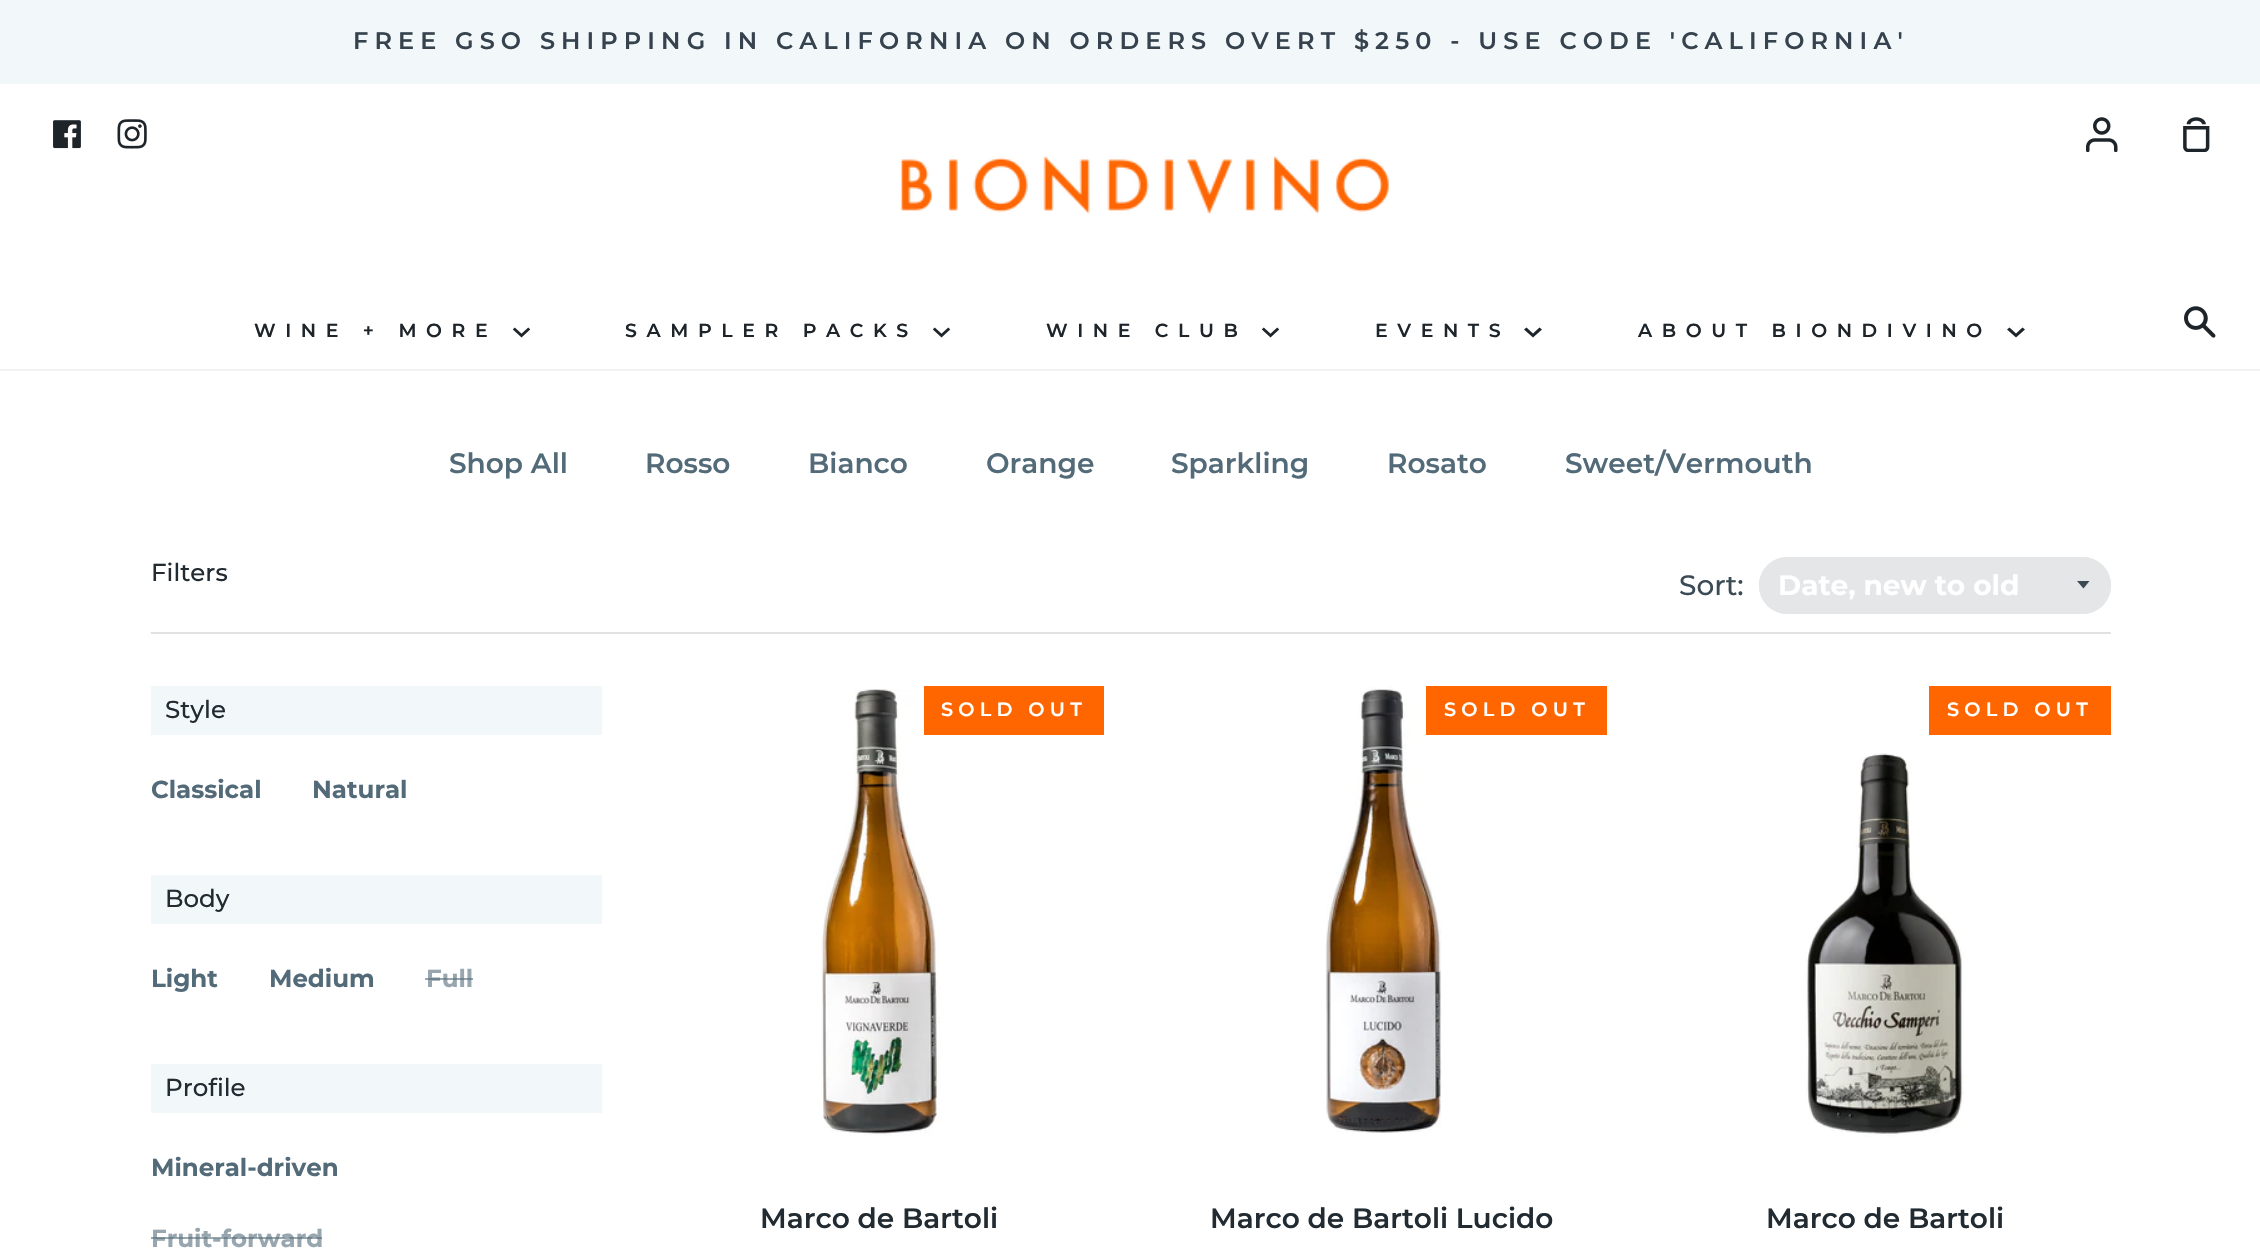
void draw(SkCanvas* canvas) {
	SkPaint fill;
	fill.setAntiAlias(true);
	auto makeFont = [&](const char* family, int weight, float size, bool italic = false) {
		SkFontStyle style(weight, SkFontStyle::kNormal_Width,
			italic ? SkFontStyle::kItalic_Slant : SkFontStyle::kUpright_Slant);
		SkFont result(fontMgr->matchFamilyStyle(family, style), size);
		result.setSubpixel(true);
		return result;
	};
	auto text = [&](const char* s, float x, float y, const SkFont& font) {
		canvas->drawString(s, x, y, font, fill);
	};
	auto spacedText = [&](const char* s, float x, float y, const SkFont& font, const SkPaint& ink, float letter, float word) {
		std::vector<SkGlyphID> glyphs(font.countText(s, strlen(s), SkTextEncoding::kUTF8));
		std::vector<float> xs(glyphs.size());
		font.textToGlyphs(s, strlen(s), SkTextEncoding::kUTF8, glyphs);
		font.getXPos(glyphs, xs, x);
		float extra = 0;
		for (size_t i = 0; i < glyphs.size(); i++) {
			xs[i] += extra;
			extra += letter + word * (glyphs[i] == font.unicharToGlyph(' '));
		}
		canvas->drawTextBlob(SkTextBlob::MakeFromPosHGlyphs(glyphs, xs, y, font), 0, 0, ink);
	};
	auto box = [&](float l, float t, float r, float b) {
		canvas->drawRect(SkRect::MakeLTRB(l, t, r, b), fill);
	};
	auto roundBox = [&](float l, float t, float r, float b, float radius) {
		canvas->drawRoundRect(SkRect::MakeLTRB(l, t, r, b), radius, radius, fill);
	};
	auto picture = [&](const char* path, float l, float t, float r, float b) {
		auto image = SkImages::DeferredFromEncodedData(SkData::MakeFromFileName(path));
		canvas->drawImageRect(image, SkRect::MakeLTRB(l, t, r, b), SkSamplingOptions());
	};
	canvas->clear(0xFFFFFFFF);
	fill.setColor(0xFFF2F7FA);
	box(0, 0, 2260, 84);
	fill.setColor(0xFFF2F2F2);
	box(0, 369, 2260, 371);
	picture("image0.png", 53, 120, 81, 149);
	picture("image1.png", 117, 119, 147, 149);
	picture("image2.png", 2086, 117, 2118, 152);
	picture("image3.png", 2183, 117, 2210, 152);
	picture("image4.png", 900, 156, 1389, 214);
	picture("image5.png", 513, 327, 530, 338);
	picture("image5.png", 933, 327, 950, 338);
	picture("image5.png", 1262, 327, 1279, 338);
	fill.setColor(0xFF1D242A);
	canvas->drawPath(SkPathBuilder(SkPathFillType::kEvenOdd).moveTo(1526.5f, 327.5f).lineTo(1533, 333.5f).lineTo(1539.5f, 327.5f).lineTo(1542, 329.5f).lineTo(1533, 337.5f).lineTo(1524, 329.5f).close().detach(), fill);
	canvas->drawPath(SkPathBuilder(SkPathFillType::kEvenOdd).moveTo(2009.5f, 327.5f).lineTo(2016, 333.5f).lineTo(2022.5f, 327.5f).lineTo(2025, 329.5f).lineTo(2016, 337.5f).lineTo(2007, 329.5f).close().detach(), fill);
	picture("image6.png", 2184, 306, 2216, 338);
	fill.setColor(0xFFE4E6E8);
	roundBox(1759, 557, 2111, 614, 28.5f);
	fill.setColor(0xFF3A4B55);
	canvas->drawPath(SkPathBuilder().moveTo(2077, 581).lineTo(2083.5f, 588.5f).lineTo(2089.5f, 581).close().detach(), fill);
	fill.setStyle(SkPaint::kStroke_Style);
	fill.setStrokeWidth(2);
	fill.setColor(0xFFE4E6E8);
	canvas->drawRoundRect(SkRect::MakeLTRB(1760, 558, 2110, 613), 27.5f, 27.5f, fill);
	fill.setStyle(SkPaint::kFill_Style);
	fill.setColor(0xFFDFE1E3);
	box(151, 632, 2111, 634);
	fill.setColor(0xFFF2F7FA);
	box(151, 686, 602, 735);
	box(151, 875, 602, 924);
	box(151, 1064, 602, 1113);
	picture("image7.png", 821, 689, 940, 1136);
	fill.setColor(0xFFFF6600);
	box(924, 686, 1104, 735);
	picture("image8.png", 1325, 686, 1442, 1133);
	box(1426, 686, 1607, 735);
	box(1929, 686, 2111, 735);
	picture("image9.png", 1805, 753, 1965, 1137);
	auto font1 = makeFont("Montserrat", 600, 23.95f);
	fill.setColor(0xFF36434E);
	spacedText("FREE GSO SHIPPING IN CALIFORNIA ON ORDERS OVERT $250 - USE CODE 'CALIFORNIA'", 353, 49, font1, fill, 6.12f, 0);
	auto font2 = makeFont("Montserrat", 600, 18.9f);
	fill.setColor(0xFF1D242A);
	spacedText("WINE + MORE", 254, 337, font2, fill, 9.6f, 0);
	spacedText("SAMPLER PACKS", 625, 337, font2, fill, 9.6f, 0);
	spacedText("WINE CLUB", 1046, 337, font2, fill, 9.6f, 0);
	spacedText("EVENTS", 1375, 337, font2, fill, 9.6f, 0);
	spacedText("ABOUT BIONDIVINO", 1638, 337, font2, fill, 9.6f, 0);
	auto font3 = makeFont("Montserrat", 600, 28);
	fill.setColor(0xFF536B79);
	text("Shop All", 449, 473, font3);
	text("Rosso", 645, 473, font3);
	text("Bianco", 808, 473, font3);
	text("Orange", 986, 473, font3);
	text("Sparkling", 1171, 473, font3);
	text("Rosato", 1387, 473, font3);
	text("Sweet/Vermouth", 1565, 473, font3);
	auto font4 = makeFont("Montserrat", 500, 24.5f);
	fill.setColor(0xFF212B31);
	text("Filters", 151, 581, font4);
	auto font5 = makeFont("Montserrat", 500, 28);
	fill.setColor(0xFF3A4B55);
	text("Sort:", 1679, 595, font5);
	auto font6 = makeFont("Montserrat", 700, 28);
	fill.setColor(0xFFFFFFFF);
	text("Date, new to old", 1778, 595, font6);
	fill.setColor(0xFF212B31);
	text("Style", 165, 718, font4);
	auto font7 = makeFont("Montserrat", 700, 24.5f);
	fill.setColor(0xFF536B79);
	text("Classical", 151, 798, font7);
	text("Natural", 312, 798, font7);
	fill.setColor(0xFF212B31);
	text("Body", 165, 907, font4);
	fill.setColor(0xFF536B79);
	text("Light", 151, 987, font7);
	text("Medium", 269, 987, font7);
	fill.setColor(0xFF98A6AF);
	text("Full", 426, 987, font7);
	fill.setColor(0x99536B79);
	box(425, 978, 473, 980);
	fill.setColor(0xFF212B31);
	text("Profile", 165, 1096, font4);
	fill.setColor(0xFF536B79);
	text("Mineral-driven", 151, 1176, font7);
	fill.setColor(0xFF98A6AF);
	text("Fruit-forward", 151, 1247, font7);
	fill.setColor(0x99536B79);
	box(151, 1237, 322, 1239);
	auto font8 = makeFont("Montserrat", 600, 19.25f);
	fill.setColor(0xFFFFFFFF);
	spacedText("SOLD OUT", 941, 716, font8, fill, 5.25f, 0);
	fill.setColor(0xFF212B31);
	text("Marco de Bartoli", 760, 1228, font3);
	fill.setColor(0xFFFFFFFF);
	spacedText("SOLD OUT", 1444, 716, font8, fill, 5.25f, 0);
	fill.setColor(0xFF212B31);
	text("Marco de Bartoli Lucido", 1210, 1228, font3);
	fill.setColor(0xFFFFFFFF);
	spacedText("SOLD OUT", 1947, 716, font8, fill, 5.25f, 0);
	fill.setColor(0xFF212B31);
	text("Marco de Bartoli", 1766, 1228, font3);
}
